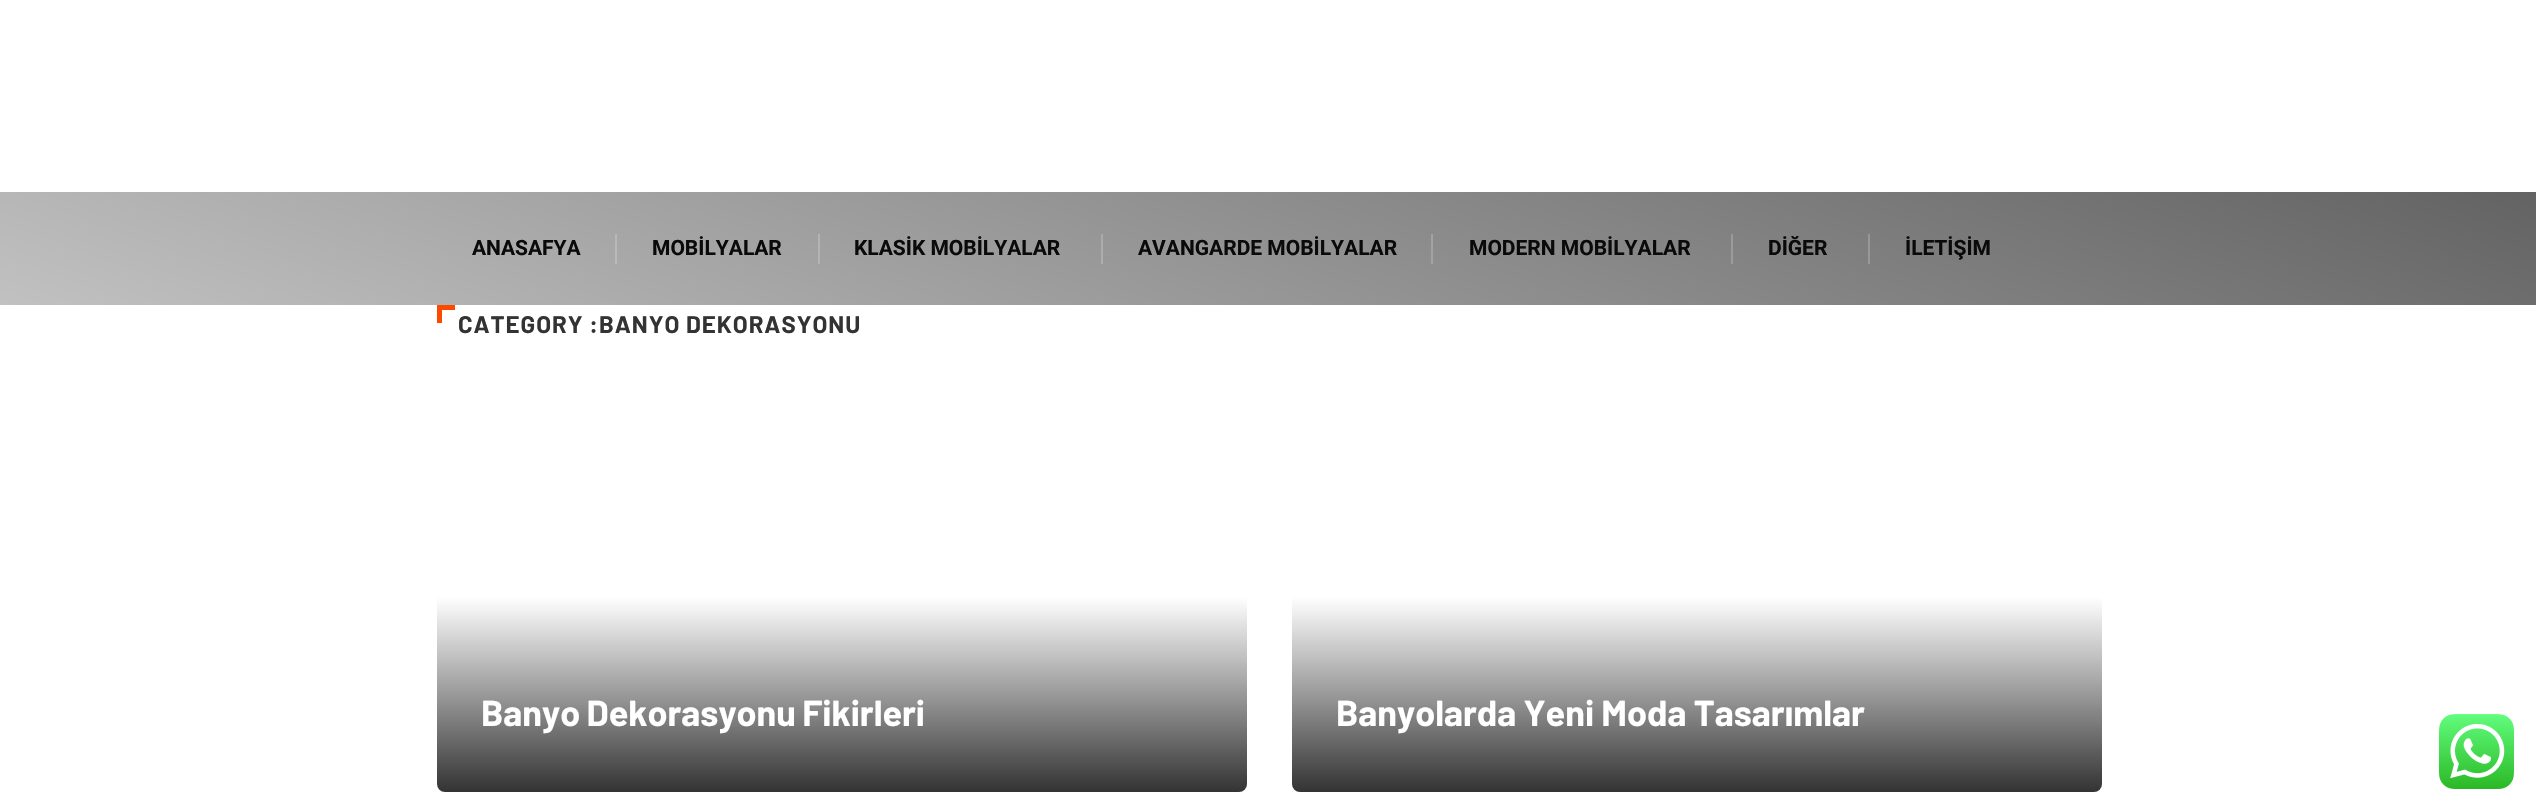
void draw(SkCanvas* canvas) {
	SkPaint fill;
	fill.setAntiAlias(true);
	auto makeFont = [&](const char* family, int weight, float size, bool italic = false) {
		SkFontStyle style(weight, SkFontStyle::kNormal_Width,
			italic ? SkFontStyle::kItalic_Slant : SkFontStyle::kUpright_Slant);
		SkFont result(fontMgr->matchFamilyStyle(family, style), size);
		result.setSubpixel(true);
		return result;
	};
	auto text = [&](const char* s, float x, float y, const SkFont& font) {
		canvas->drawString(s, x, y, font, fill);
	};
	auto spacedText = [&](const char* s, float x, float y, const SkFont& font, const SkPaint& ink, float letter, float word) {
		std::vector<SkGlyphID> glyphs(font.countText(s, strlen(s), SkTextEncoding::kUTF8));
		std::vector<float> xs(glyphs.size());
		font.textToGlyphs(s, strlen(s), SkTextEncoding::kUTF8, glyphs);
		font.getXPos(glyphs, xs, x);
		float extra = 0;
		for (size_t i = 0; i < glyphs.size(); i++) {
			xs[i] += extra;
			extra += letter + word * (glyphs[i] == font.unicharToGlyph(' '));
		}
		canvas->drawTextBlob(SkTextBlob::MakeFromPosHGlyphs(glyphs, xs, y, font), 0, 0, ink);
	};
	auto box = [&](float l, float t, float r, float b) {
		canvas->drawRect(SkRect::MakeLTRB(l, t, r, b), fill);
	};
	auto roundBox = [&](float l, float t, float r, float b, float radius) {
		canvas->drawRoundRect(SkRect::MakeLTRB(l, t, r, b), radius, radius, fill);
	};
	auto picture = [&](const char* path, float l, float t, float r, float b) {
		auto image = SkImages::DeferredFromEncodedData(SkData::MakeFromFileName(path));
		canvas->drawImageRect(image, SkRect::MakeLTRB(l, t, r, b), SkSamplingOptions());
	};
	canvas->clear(0xFFFFFFFF);
	{
		const SkColor colors[] = {0xFFC1C1C1, 0xFF636363};
		const float stops[] = {0, 1};
		const SkPoint ends[] = {{1102, 706}, {1435, -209}};
		fill.setShader(SkGradientShader::MakeLinear(ends, colors, stops, 2, SkTileMode::kClamp));
		fill.setAlpha(255);
	}
	box(0, 192, 2536, 305);
	{
		const SkColor colors[] = {0xFFCDCDCD, 0xFF828282};
		const float stops[] = {0, 1};
		const SkPoint ends[] = {{1102, 706}, {1435, -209}};
		fill.setShader(SkGradientShader::MakeLinear(ends, colors, stops, 2, SkTileMode::kClamp));
		fill.setAlpha(255);
	}
	box(1868, 234, 1870, 264);
	box(1731, 234, 1733, 264);
	box(1431, 234, 1433, 264);
	box(1101, 234, 1103, 264);
	box(615, 234, 617, 264);
	fill.setShader(nullptr);
	fill.setColor(0xFFB4B4B4);
	box(818, 234, 820, 264);
	fill.setColor(0xFFFC4A00);
	box(437, 305, 442, 323);
	box(437, 305, 455, 310);
	{
		const SkColor colors[] = {0xFFFFFFFF, 0xFF333333};
		const float stops[] = {0.5f, 1};
		const SkPoint ends[] = {{842, 402}, {842, 792}};
		fill.setShader(SkGradientShader::MakeLinear(ends, colors, stops, 2, SkTileMode::kClamp));
		fill.setAlpha(255);
	}
	roundBox(437, 402, 1247, 792, 8);
	{
		const SkColor colors[] = {0xFFFFFFFF, 0xFF333333};
		const float stops[] = {0.5f, 1};
		const SkPoint ends[] = {{1697, 402}, {1697, 792}};
		fill.setShader(SkGradientShader::MakeLinear(ends, colors, stops, 2, SkTileMode::kClamp));
		fill.setAlpha(255);
	}
	roundBox(1292, 402, 2102, 792, 8);
	picture("image0.png", 2439, 714, 2514, 789);
	auto font1 = makeFont("Roboto", 700, 21);
	fill.setShader(nullptr);
	fill.setColor(0xFF0A0A0A);
	text("ANASAFYA", 472, 255, font1);
	text("MOBİLYALAR", 652, 255, font1);
	text("KLASİK MOBİLYALAR", 854, 255, font1);
	text("AVANGARDE MOBİLYALAR", 1138, 255, font1);
	text("MODERN MOBİLYALAR", 1469, 255, font1);
	text("DİĞER", 1768, 255, font1);
	text("İLETİŞİM", 1905, 255, font1);
	auto font2 = makeFont("Barlow", 700, 24);
	fill.setColor(0xFF333333);
	spacedText("CATEGORY :BANYO DEKORASYONU", 458, 333, font2, fill, 0.95f, 0);
	auto font3 = makeFont("Barlow", 700, 36);
	fill.setColor(0xFFFFFFFF);
	spacedText("Banyo Dekorasyonu Fikirleri", 481, 726, font3, fill, 0, -1);
	text("Banyolarda Yeni Moda Tasarımlar", 1336, 726, font3);
}
